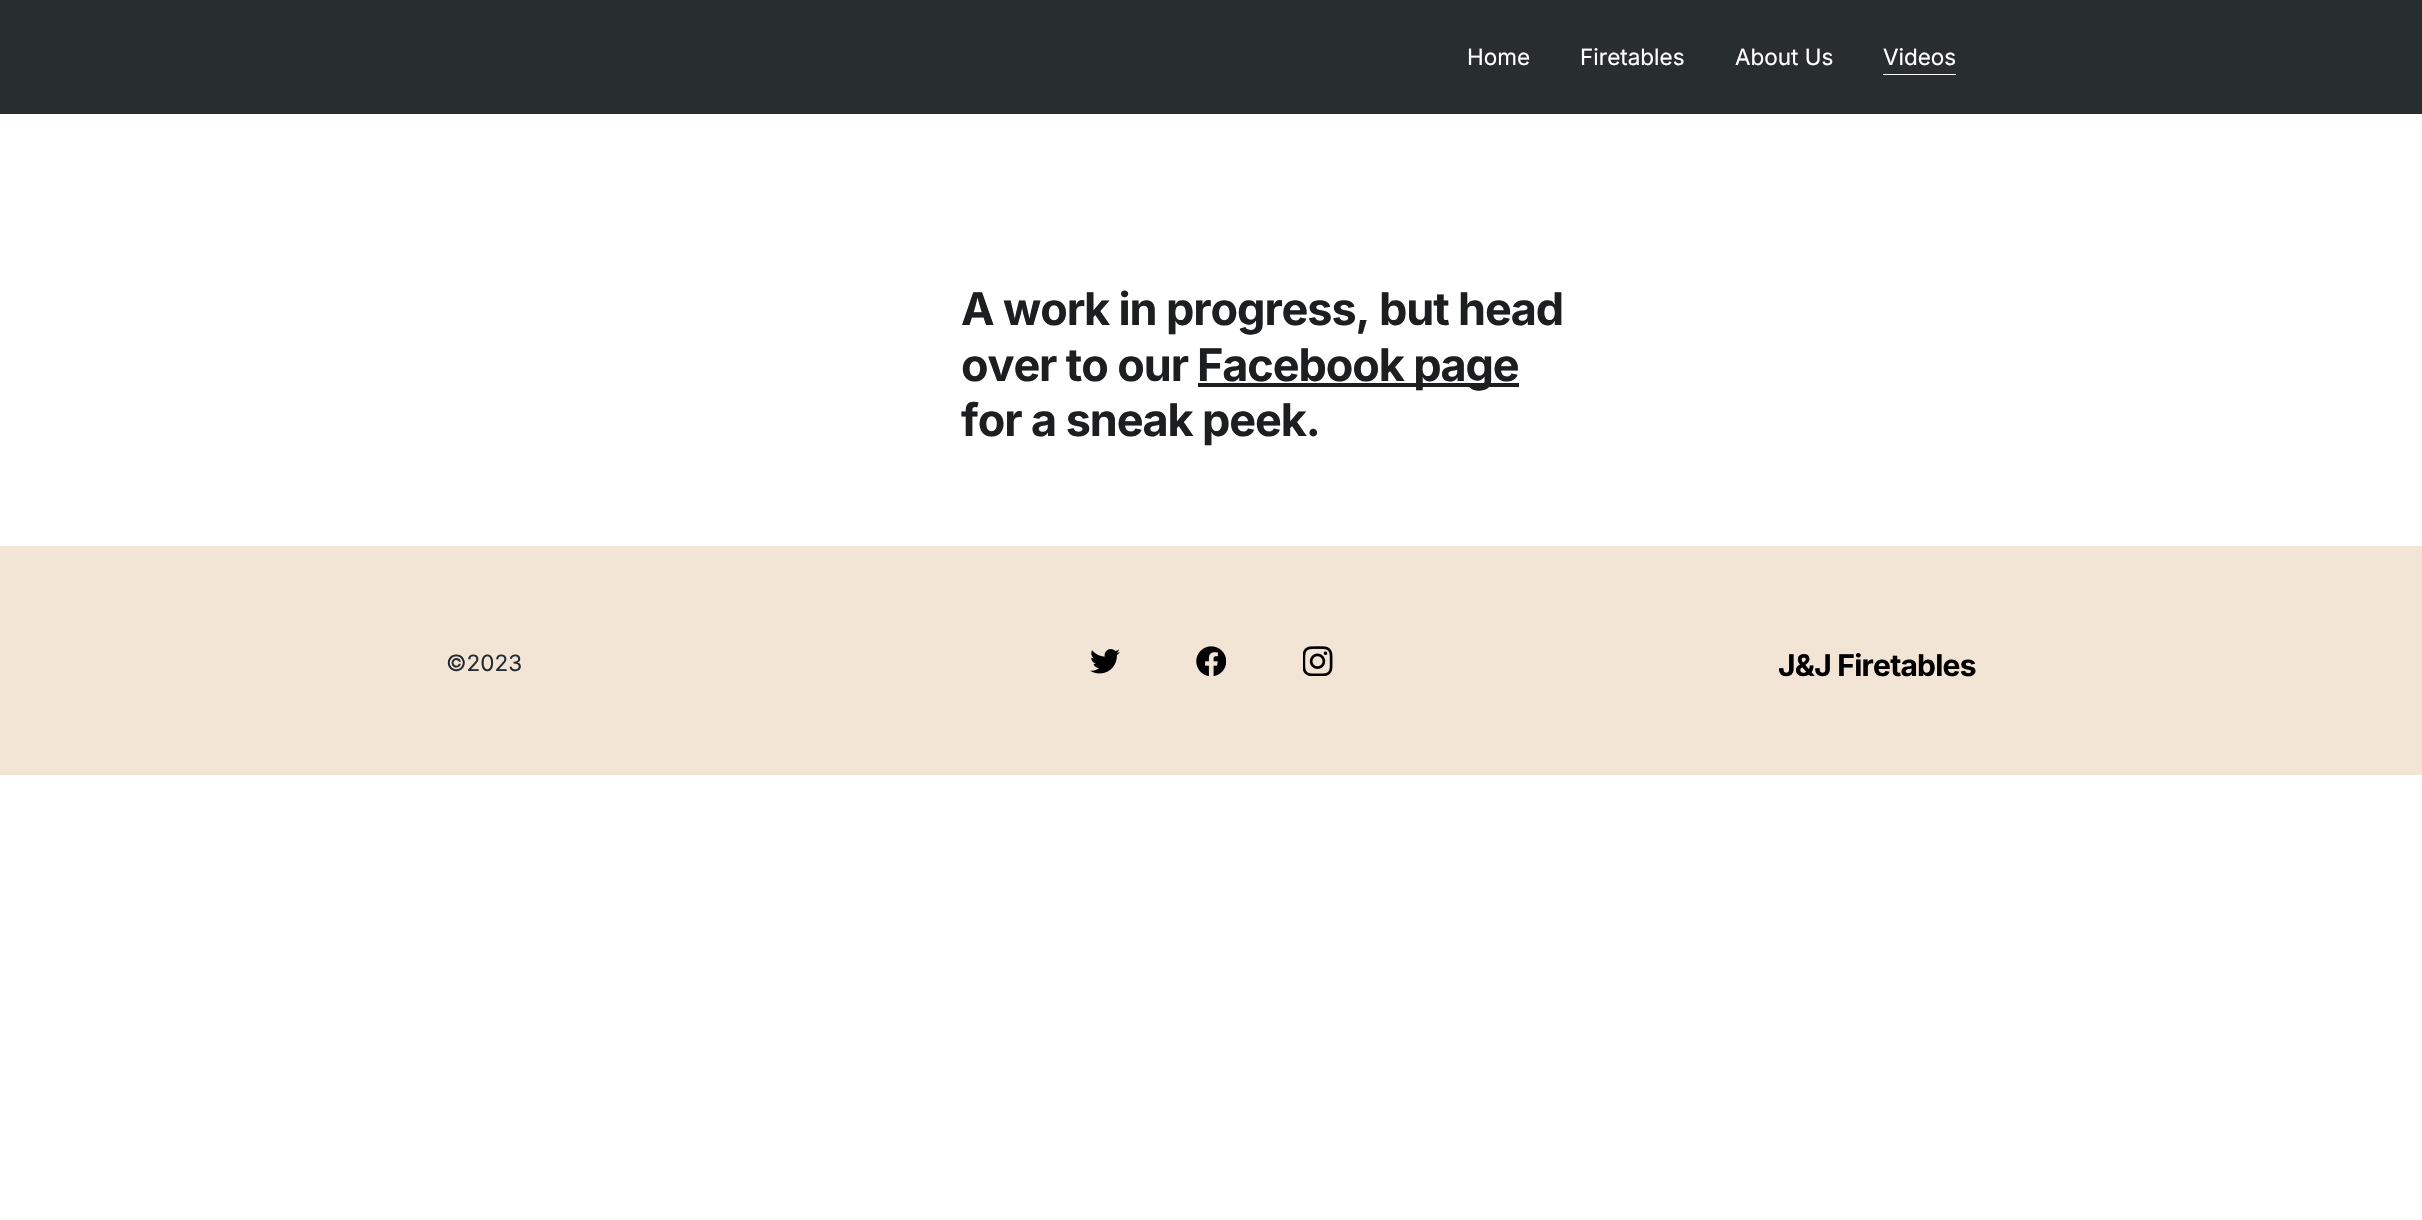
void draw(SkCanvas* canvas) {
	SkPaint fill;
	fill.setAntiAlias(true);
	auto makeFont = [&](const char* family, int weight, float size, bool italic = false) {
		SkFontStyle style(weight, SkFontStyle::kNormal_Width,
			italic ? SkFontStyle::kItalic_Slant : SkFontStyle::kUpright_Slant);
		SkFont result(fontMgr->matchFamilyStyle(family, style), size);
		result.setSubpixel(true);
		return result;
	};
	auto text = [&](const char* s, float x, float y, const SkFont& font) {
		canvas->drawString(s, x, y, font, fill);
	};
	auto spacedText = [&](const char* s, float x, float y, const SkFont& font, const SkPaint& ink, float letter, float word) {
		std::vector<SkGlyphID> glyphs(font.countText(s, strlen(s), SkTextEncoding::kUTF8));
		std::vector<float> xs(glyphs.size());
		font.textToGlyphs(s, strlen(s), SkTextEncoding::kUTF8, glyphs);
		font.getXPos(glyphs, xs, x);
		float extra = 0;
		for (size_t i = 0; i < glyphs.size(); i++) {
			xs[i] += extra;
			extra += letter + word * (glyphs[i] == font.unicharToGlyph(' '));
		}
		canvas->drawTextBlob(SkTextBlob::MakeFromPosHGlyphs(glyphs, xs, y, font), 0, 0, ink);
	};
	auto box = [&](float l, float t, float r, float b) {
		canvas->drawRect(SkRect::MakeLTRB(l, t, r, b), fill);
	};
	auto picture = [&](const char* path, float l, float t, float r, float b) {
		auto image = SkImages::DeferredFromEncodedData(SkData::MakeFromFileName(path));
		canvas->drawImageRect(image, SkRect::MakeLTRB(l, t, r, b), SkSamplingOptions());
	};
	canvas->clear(0xFFFFFFFF);
	fill.setColor(0xFF282D30);
	box(0, 0, 2422, 114);
	fill.setColor(0xFFFFFFFF);
	box(1883, 74, 1956, 75);
	fill.setColor(0xFF1D1E20);
	box(1198, 383, 1519, 387);
	fill.setColor(0xFFF3E5D6);
	box(0, 546, 2422, 775);
	picture("image0.png", 1090, 649, 1120, 674);
	picture("image1.png", 1196, 646, 1226, 676);
	picture("image2.png", 1303, 646, 1333, 676);
	auto font1 = makeFont("Inter", 400, 22.5f);
	fill.setColor(0xFFFFFFFF);
	text("Home", 1467, 65, font1);
	text("Firetables", 1580, 65, font1);
	text("About Us", 1735, 65, font1);
	text("Videos", 1883, 65, font1);
	auto font2 = makeFont("Inter", 700, 45);
	fill.setColor(0xFF1D1E20);
	spacedText("A work in progress, but head", 961, 325, font2, fill, -1.1f, 0);
	spacedText("over to our", 961, 381, font2, fill, -1.1f, 0);
	spacedText("Facebook page", 1197, 381, font2, fill, -1.1f, 0);
	spacedText("for a sneak peek.", 961, 436, font2, fill, -1.1f, 0);
	fill.setColor(0xFF252B33);
	text("©2023", 446, 671, font1);
	auto font3 = makeFont("Inter", 700, 30);
	fill.setColor(0xFF000000);
	spacedText("J&J Firetables", 1778, 676, font3, fill, -0.75f, 0);
}
